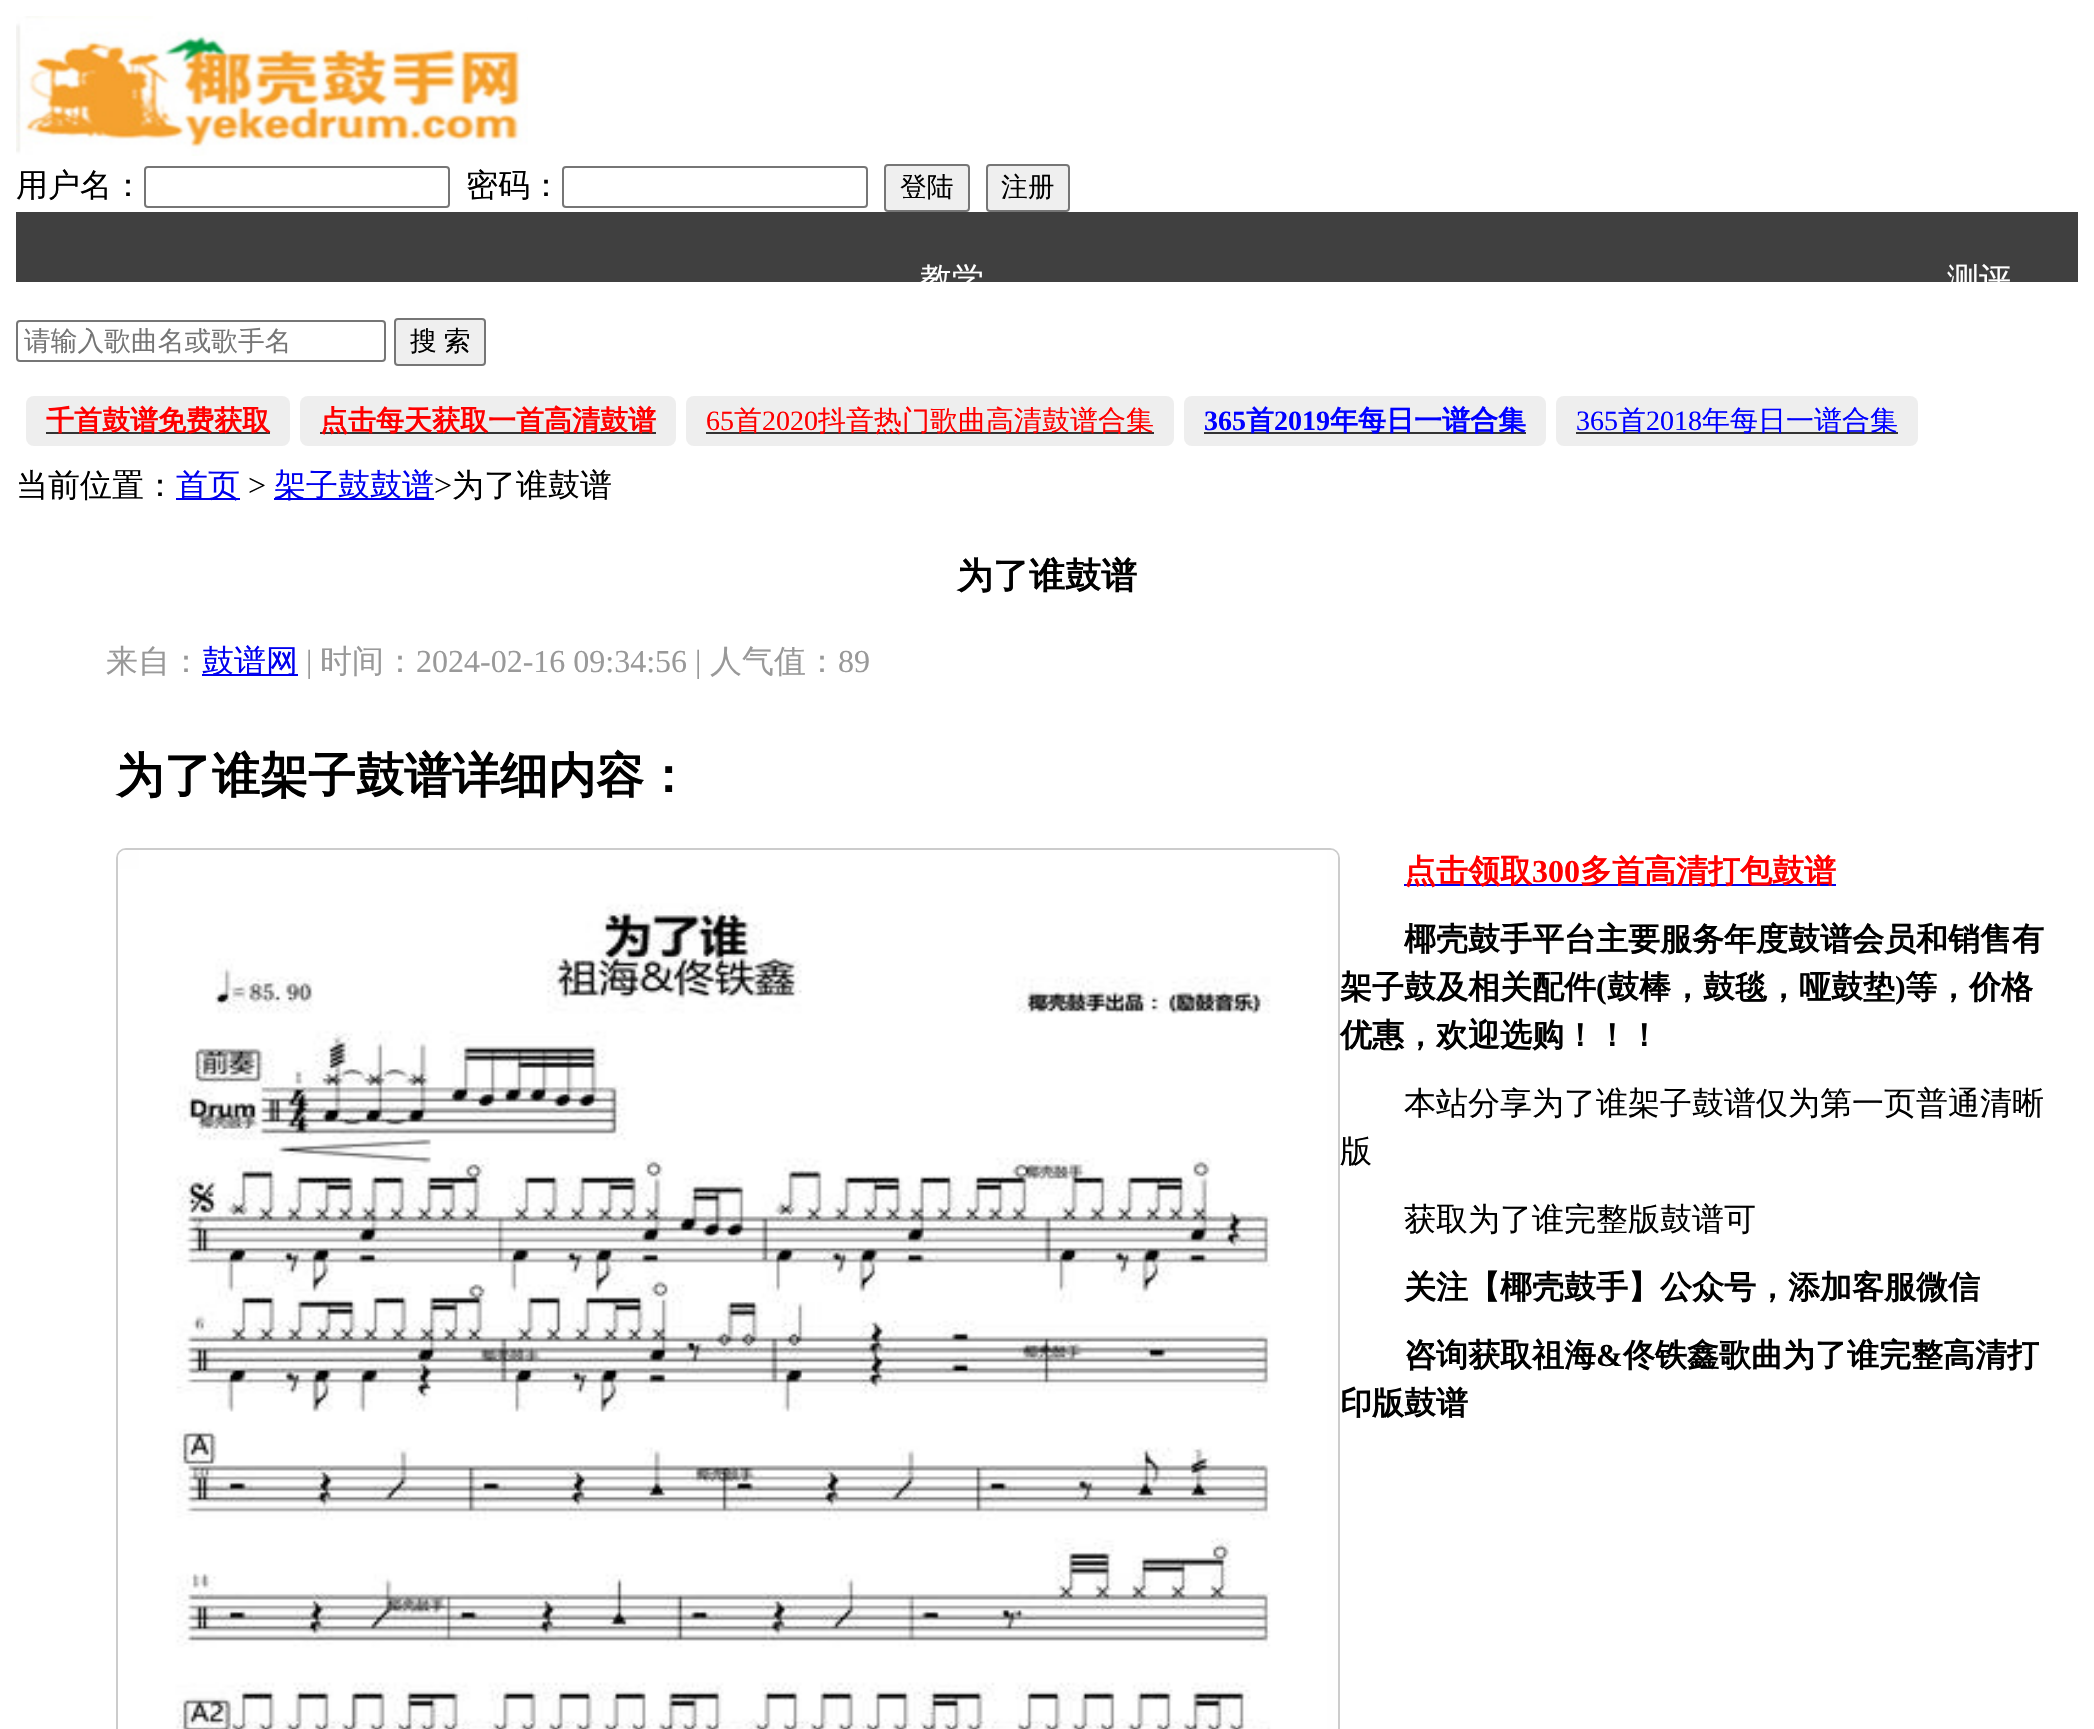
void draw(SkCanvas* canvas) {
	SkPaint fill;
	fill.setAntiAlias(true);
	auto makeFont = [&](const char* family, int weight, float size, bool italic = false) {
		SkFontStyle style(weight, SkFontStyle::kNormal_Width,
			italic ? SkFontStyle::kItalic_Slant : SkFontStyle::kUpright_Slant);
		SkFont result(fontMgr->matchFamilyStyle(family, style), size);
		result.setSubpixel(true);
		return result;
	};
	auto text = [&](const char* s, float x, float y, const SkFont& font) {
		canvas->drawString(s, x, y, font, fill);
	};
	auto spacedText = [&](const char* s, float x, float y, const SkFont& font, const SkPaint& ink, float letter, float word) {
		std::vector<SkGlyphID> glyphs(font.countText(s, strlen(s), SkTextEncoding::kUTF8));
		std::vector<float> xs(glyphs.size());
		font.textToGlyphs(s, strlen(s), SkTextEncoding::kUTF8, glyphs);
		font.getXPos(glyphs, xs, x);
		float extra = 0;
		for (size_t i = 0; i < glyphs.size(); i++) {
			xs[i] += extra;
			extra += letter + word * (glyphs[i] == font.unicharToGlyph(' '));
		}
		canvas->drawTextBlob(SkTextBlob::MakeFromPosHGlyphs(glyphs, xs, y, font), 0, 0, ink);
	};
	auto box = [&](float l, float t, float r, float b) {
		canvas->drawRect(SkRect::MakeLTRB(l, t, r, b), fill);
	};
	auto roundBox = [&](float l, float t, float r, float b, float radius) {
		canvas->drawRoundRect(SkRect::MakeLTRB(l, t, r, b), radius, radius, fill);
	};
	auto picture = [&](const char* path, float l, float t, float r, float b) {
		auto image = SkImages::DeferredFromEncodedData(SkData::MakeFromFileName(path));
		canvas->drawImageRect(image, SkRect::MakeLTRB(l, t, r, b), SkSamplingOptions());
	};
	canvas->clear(0xFFFFFFFF);
	picture("image0.png", 16, 16, 528, 156);
	fill.setStyle(SkPaint::kStroke_Style);
	fill.setStrokeWidth(2);
	fill.setColor(0xFF767676);
	canvas->drawRoundRect(SkRect::MakeLTRB(145, 167, 449, 207), 3, 3, fill);
	canvas->drawRoundRect(SkRect::MakeLTRB(563, 167, 867, 207), 3, 3, fill);
	fill.setStyle(SkPaint::kFill_Style);
	fill.setColor(0xFFEFEFEF);
	canvas->drawRoundRect(SkRect::MakeLTRB(885, 165, 969, 211), 3, 3, fill);
	fill.setStyle(SkPaint::kStroke_Style);
	fill.setColor(0xFF767676);
	canvas->drawRoundRect(SkRect::MakeLTRB(885, 165, 969, 211), 3, 3, fill);
	fill.setStyle(SkPaint::kFill_Style);
	fill.setColor(0xFFEFEFEF);
	canvas->drawRoundRect(SkRect::MakeLTRB(987, 165, 1069, 211), 3, 3, fill);
	fill.setStyle(SkPaint::kStroke_Style);
	fill.setColor(0xFF767676);
	canvas->drawRoundRect(SkRect::MakeLTRB(987, 165, 1069, 211), 3, 3, fill);
	fill.setStyle(SkPaint::kFill_Style);
	fill.setColor(0xFF404040);
	box(16, 212, 2078, 282);
	fill.setStyle(SkPaint::kStroke_Style);
	fill.setColor(0xFF767676);
	canvas->drawRoundRect(SkRect::MakeLTRB(17, 321, 385, 361), 3, 3, fill);
	fill.setStyle(SkPaint::kFill_Style);
	fill.setColor(0xFFEFEFEF);
	canvas->drawRoundRect(SkRect::MakeLTRB(395, 319, 485, 365), 3, 3, fill);
	fill.setStyle(SkPaint::kStroke_Style);
	fill.setColor(0xFF767676);
	canvas->drawRoundRect(SkRect::MakeLTRB(395, 319, 485, 365), 3, 3, fill);
	fill.setStyle(SkPaint::kFill_Style);
	fill.setColor(0xFFEEEEEE);
	roundBox(26, 396, 290, 446, 8);
	fill.setColor(0xFF333333);
	box(46, 432, 270, 434);
	fill.setColor(0xFFEEEEEE);
	roundBox(300, 396, 676, 446, 8);
	fill.setColor(0xFF333333);
	box(320, 432, 656, 434);
	fill.setColor(0xFFEEEEEE);
	roundBox(686, 396, 1174, 446, 8);
	fill.setColor(0xFF333333);
	box(706, 432, 1154, 434);
	fill.setColor(0xFFEEEEEE);
	roundBox(1184, 396, 1546, 446, 8);
	fill.setColor(0xFF333333);
	box(1204, 432, 1526, 434);
	fill.setColor(0xFFEEEEEE);
	roundBox(1556, 396, 1918, 446, 8);
	fill.setColor(0xFF333333);
	box(1576, 432, 1898, 434);
	fill.setColor(0xFF0000EE);
	box(176, 498, 240, 500);
	box(274, 498, 434, 500);
	box(202, 674, 298, 676);
	fill.setStyle(SkPaint::kStroke_Style);
	fill.setColor(0xFFCCCCCC);
	canvas->drawRoundRect(SkRect::MakeLTRB(117, 849, 1339, 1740), 9, 9, fill);
	picture("image1.png", 118, 850, 1338, 1729);
	fill.setStyle(SkPaint::kFill_Style);
	fill.setColor(0xFF0000EE);
	box(1404, 884, 1836, 886);
	auto font1 = makeFont("WenQuanYi Zen Hei", 500, 32);
	fill.setColor(0xFF000000);
	text("用户名：", 16, 196, font1);
	text("密码：", 466, 196, font1);
	auto font2 = makeFont("WenQuanYi Zen Hei", 500, 26.75f);
	text("登陆", 900, 196, font2);
	text("注册", 1001, 196, font2);
	canvas->save();
	canvas->clipRect(SkRect::MakeLTRB(16, 212, 2078, 282));
	fill.setColor(0xFFFFFFFF);
	text("教学", 920, 290, font1);
	text("测评", 1947, 290, font1);
	canvas->restore();
	fill.setColor(0xFF757575);
	text("请输入歌曲名或歌手名", 24, 350, font2);
	fill.setColor(0xFF000000);
	spacedText("搜 索", 410, 350, font2, fill, 0, -1);
	auto font3 = makeFont("WenQuanYi Zen Hei", 700, 28);
	fill.setColor(0xFFFF0000);
	text("千首鼓谱免费获取", 46, 430, font3);
	text("点击每天获取一首高清鼓谱", 320, 430, font3);
	auto font4 = makeFont("Liberation Serif", 400, 28);
	text("65", 706, 430, font4);
	auto font5 = makeFont("WenQuanYi Zen Hei", 500, 28);
	text("首", 734, 430, font5);
	text("2020", 762, 430, font4);
	text("抖音热门歌曲高清鼓谱合集", 818, 430, font5);
	auto font6 = makeFont("Liberation Serif", 700, 28);
	fill.setColor(0xFF0000FF);
	text("365", 1204, 430, font6);
	text("首", 1246, 430, font3);
	text("2019", 1274, 430, font6);
	text("年每日一谱合集", 1330, 430, font3);
	text("365", 1576, 430, font4);
	text("首", 1618, 430, font5);
	text("2018", 1646, 430, font4);
	text("年每日一谱合集", 1702, 430, font5);
	fill.setColor(0xFF000000);
	text("当前位置：", 16, 496, font1);
	fill.setColor(0xFF0000EE);
	text("首页", 176, 496, font1);
	auto font7 = makeFont("Liberation Serif", 400, 32);
	fill.setColor(0xFF000000);
	text(">", 248, 496, font7);
	fill.setColor(0xFF0000EE);
	text("架子鼓鼓谱", 274, 496, font1);
	fill.setColor(0xFF000000);
	text(">", 434, 496, font7);
	text("为了谁鼓谱", 452, 496, font1);
	auto font8 = makeFont("WenQuanYi Zen Hei", 700, 36);
	text("为了谁鼓谱", 957, 588, font8);
	fill.setColor(0xFF999999);
	text("来自：", 106, 672, font1);
	fill.setColor(0xFF0000EE);
	text("鼓谱网", 202, 672, font1);
	fill.setColor(0xFF999999);
	text("|", 306, 672, font7);
	text("时间：", 320, 672, font1);
	text("2024-02-16 09:34:56 |", 416, 672, font7);
	text("人气值：", 710, 672, font1);
	text("89", 838, 672, font7);
	auto font9 = makeFont("WenQuanYi Zen Hei", 700, 48);
	fill.setColor(0xFF000000);
	text("为了谁架子鼓谱详细内容：", 116, 792, font9);
	auto font10 = makeFont("WenQuanYi Zen Hei", 700, 32);
	fill.setColor(0xFFFF0000);
	text("点击领取", 1404, 882, font10);
	auto font11 = makeFont("Liberation Serif", 700, 32);
	text("300", 1532, 882, font11);
	text("多首高清打包鼓谱", 1580, 882, font10);
	fill.setColor(0xFF000000);
	text("椰壳鼓手平台主要服务年度鼓谱会员和销售有", 1404, 950, font10);
	text("架子鼓及相关配件", 1340, 998, font10);
	text("(", 1596, 998, font11);
	text("鼓棒，鼓毯，哑鼓垫", 1607, 998, font10);
	text(")", 1895, 998, font11);
	text("等，价格", 1905, 998, font10);
	text("优惠，欢迎选购！！！", 1340, 1046, font10);
	text("本站分享为了谁架子鼓谱仅为第一页普通清晰", 1404, 1114, font1);
	text("版", 1340, 1162, font1);
	text("获取为了谁完整版鼓谱可", 1404, 1230, font1);
	text("关注【椰壳鼓手】公众号，添加客服微信", 1404, 1298, font10);
	text("咨询获取祖海", 1404, 1366, font10);
	text("&", 1596, 1366, font11);
	text("佟铁鑫歌曲为了谁完整高清打", 1623, 1366, font10);
	text("印版鼓谱", 1340, 1414, font10);
}
